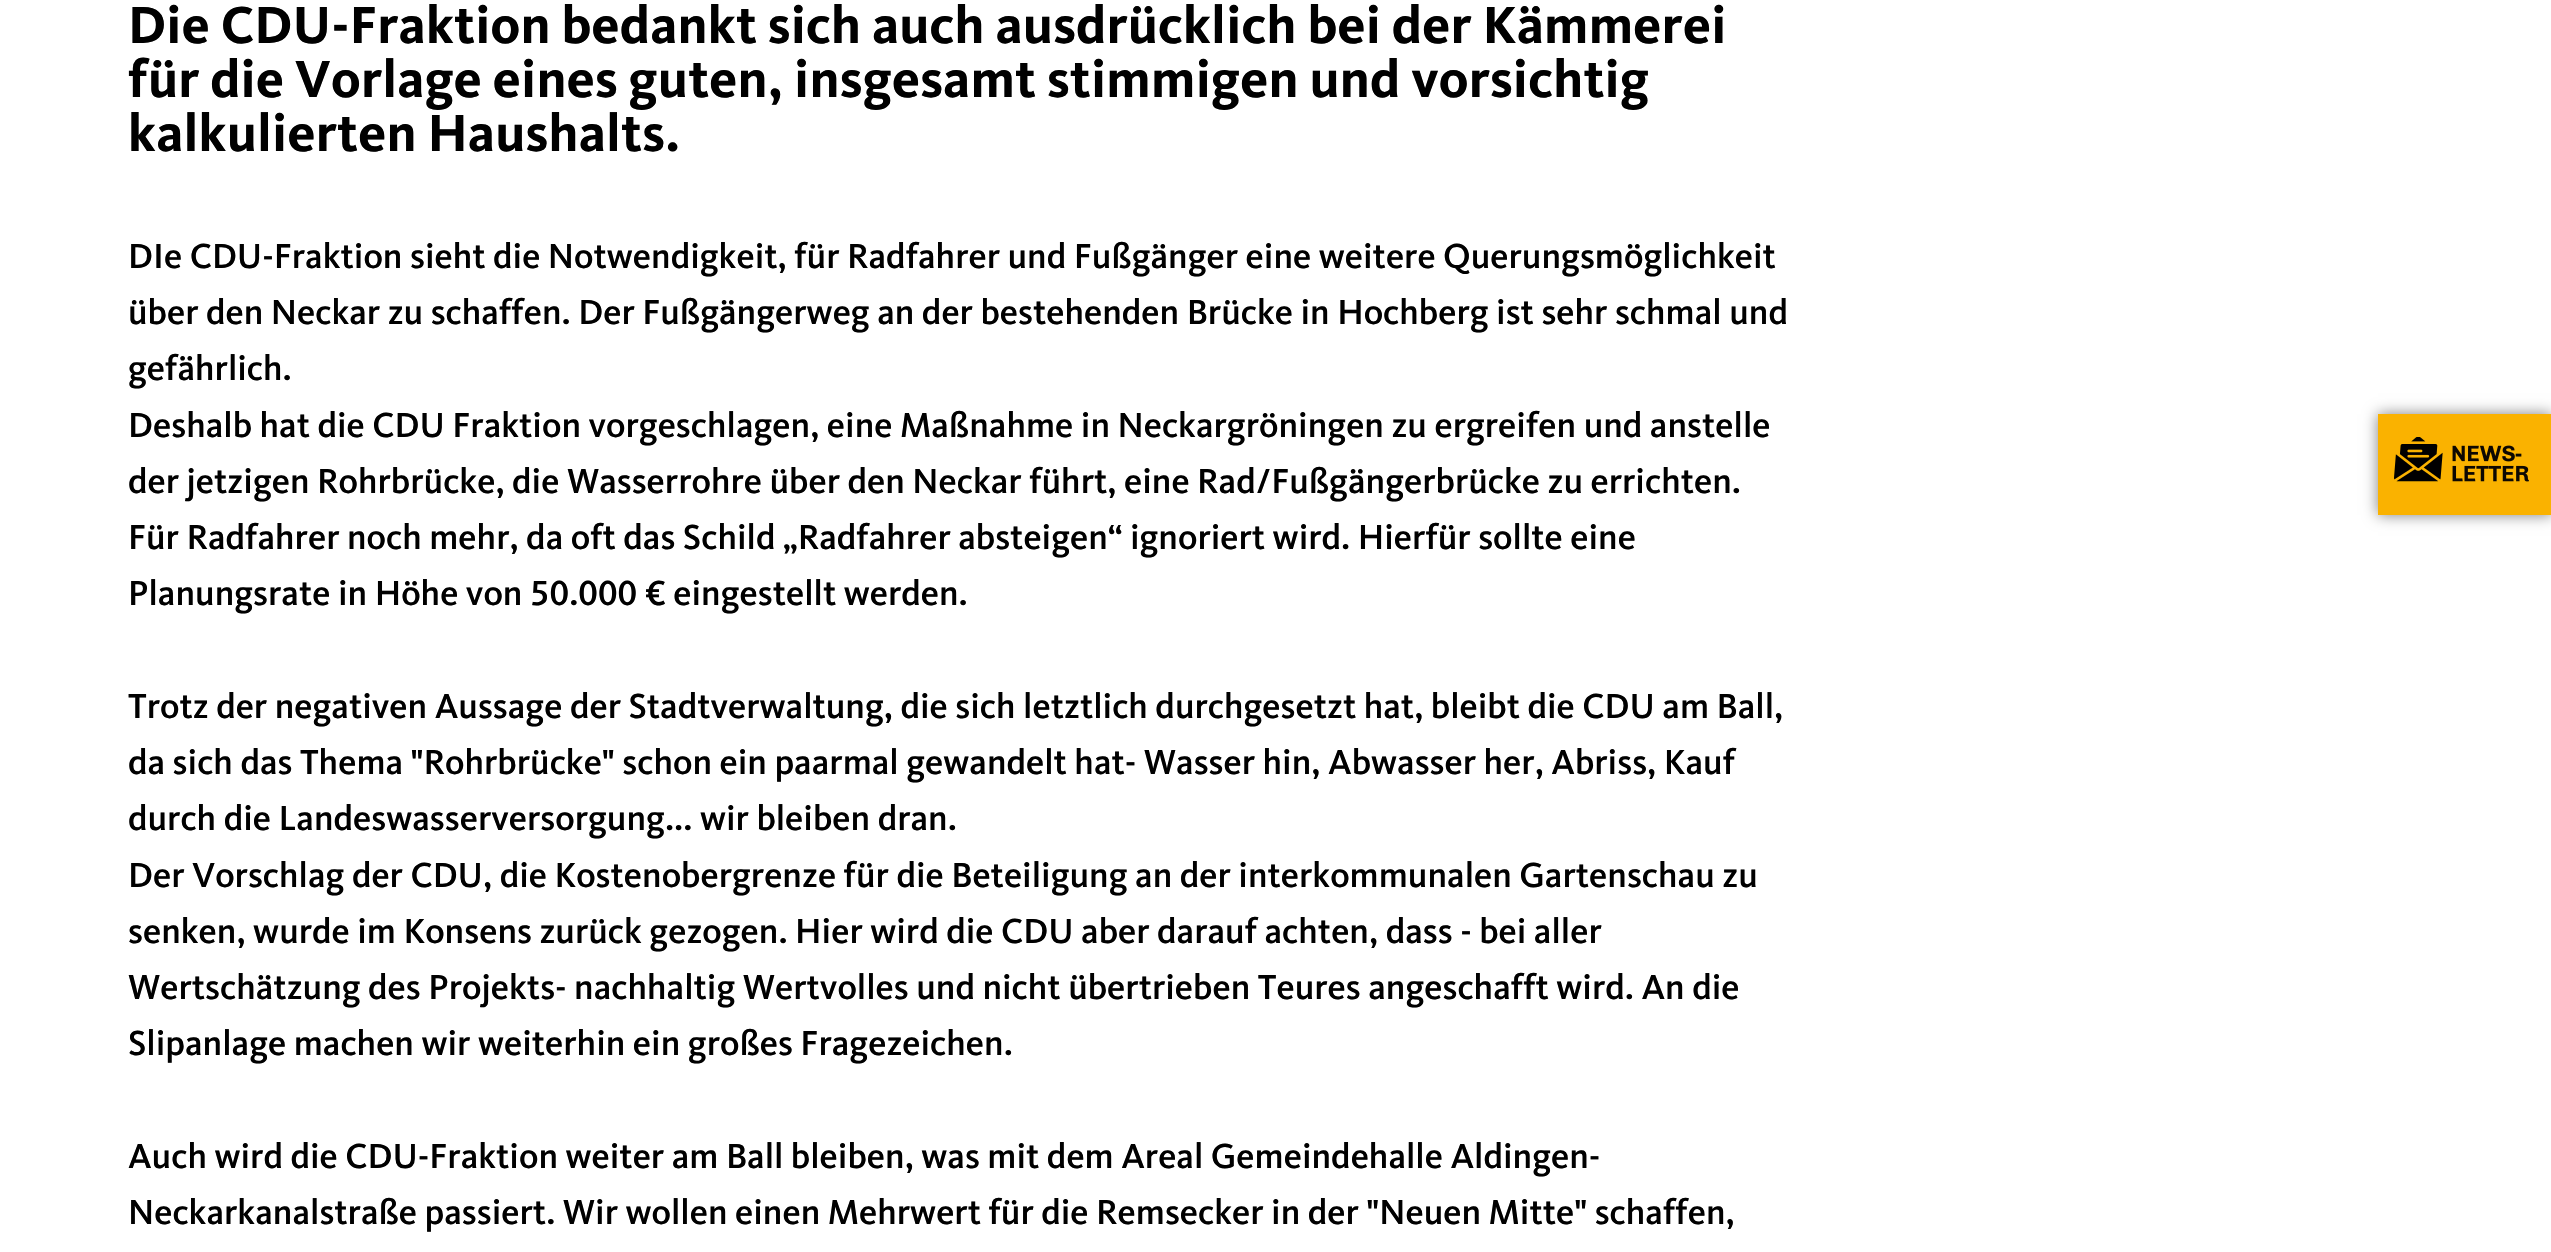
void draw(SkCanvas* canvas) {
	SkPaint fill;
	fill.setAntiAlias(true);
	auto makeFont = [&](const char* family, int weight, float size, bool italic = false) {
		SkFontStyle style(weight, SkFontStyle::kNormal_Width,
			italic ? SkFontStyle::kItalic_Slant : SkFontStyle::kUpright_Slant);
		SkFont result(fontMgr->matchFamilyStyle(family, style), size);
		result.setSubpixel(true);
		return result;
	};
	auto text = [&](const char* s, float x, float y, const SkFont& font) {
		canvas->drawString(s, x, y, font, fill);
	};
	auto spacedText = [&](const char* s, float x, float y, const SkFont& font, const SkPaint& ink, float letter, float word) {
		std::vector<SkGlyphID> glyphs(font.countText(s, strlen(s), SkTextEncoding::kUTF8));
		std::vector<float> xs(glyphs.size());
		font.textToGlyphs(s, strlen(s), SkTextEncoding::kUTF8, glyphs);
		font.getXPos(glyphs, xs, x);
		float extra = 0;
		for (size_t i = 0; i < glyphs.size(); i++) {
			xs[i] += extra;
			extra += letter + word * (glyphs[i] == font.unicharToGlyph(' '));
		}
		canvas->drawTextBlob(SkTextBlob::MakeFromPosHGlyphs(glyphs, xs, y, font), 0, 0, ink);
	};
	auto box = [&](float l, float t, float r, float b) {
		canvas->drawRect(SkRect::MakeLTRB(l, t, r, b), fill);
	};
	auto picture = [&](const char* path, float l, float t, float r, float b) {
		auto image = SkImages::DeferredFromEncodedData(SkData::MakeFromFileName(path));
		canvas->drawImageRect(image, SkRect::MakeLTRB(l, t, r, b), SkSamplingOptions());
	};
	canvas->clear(0xFFFFFFFF);
	fill.setColor(0x80000000);
	fill.setMaskFilter(SkMaskFilter::MakeBlur(kNormal_SkBlurStyle, 7));
	canvas->drawRect(SkRect::MakeLTRB(2378, 414, 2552, 515), fill);
	fill.setMaskFilter(nullptr);
	fill.setColor(0xFFFAB200);
	box(2378, 414, 2551, 515);
	picture("image0.png", 2394, 437, 2529, 482);
	auto font1 = makeFont("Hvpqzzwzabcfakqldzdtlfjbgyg", 700, 54);
	fill.setColor(0xFF000000);
	spacedText("Die CDU-Fraktion bedankt sich auch ausdrücklich bei der Kämmerei", 128, 43, font1, fill, 0.23f, 0);
	spacedText("für die Vorlage eines guten, insgesamt stimmigen und vorsichtig", 128, 97, font1, fill, 0.23f, 0);
	spacedText("kalkulierten Haushalts.", 128, 151, font1, fill, 0.23f, 0);
	auto font2 = makeFont("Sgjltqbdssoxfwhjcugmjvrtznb", 500, 36);
	text("DIe CDU-Fraktion sieht die Notwendigkeit, für Radfahrer und Fußgänger eine weitere Querungsmöglichkeit", 128, 268, font2);
	text("über den Neckar zu schaffen. Der Fußgängerweg an der bestehenden Brücke in Hochberg ist sehr schmal und", 128, 324, font2);
	text("gefährlich.", 128, 380, font2);
	text("Deshalb hat die CDU Fraktion vorgeschlagen, eine Maßnahme in Neckargröningen zu ergreifen und anstelle", 128, 437, font2);
	text("der jetzigen Rohrbrücke, die Wasserrohre über den Neckar führt, eine Rad/Fußgängerbrücke zu errichten.", 128, 493, font2);
	text("Für Radfahrer noch mehr, da oft das Schild „Radfahrer absteigen“ ignoriert wird. Hierfür sollte eine", 128, 549, font2);
	text("Planungsrate in Höhe von 50.000 € eingestellt werden.", 128, 605, font2);
	text("Trotz der negativen Aussage der Stadtverwaltung, die sich letztlich durchgesetzt hat, bleibt die CDU am Ball,", 128, 718, font2);
	text("da sich das Thema \"Rohrbrücke\" schon ein paarmal gewandelt hat- Wasser hin, Abwasser her, Abriss, Kauf", 128, 774, font2);
	text("durch die Landeswasserversorgung... wir bleiben dran.", 128, 830, font2);
	text("Der Vorschlag der CDU, die Kostenobergrenze für die Beteiligung an der interkommunalen Gartenschau zu", 128, 887, font2);
	text("senken, wurde im Konsens zurück gezogen. Hier wird die CDU aber darauf achten, dass - bei aller", 128, 943, font2);
	text("Wertschätzung des Projekts- nachhaltig Wertvolles und nicht übertrieben Teures angeschafft wird. An die", 128, 999, font2);
	text("Slipanlage machen wir weiterhin ein großes Fragezeichen.", 128, 1055, font2);
	text("Auch wird die CDU-Fraktion weiter am Ball bleiben, was mit dem Areal Gemeindehalle Aldingen-", 128, 1168, font2);
	text("Neckarkanalstraße passiert. Wir wollen einen Mehrwert für die Remsecker in der \"Neuen Mitte\" schaffen,", 128, 1224, font2);
}
